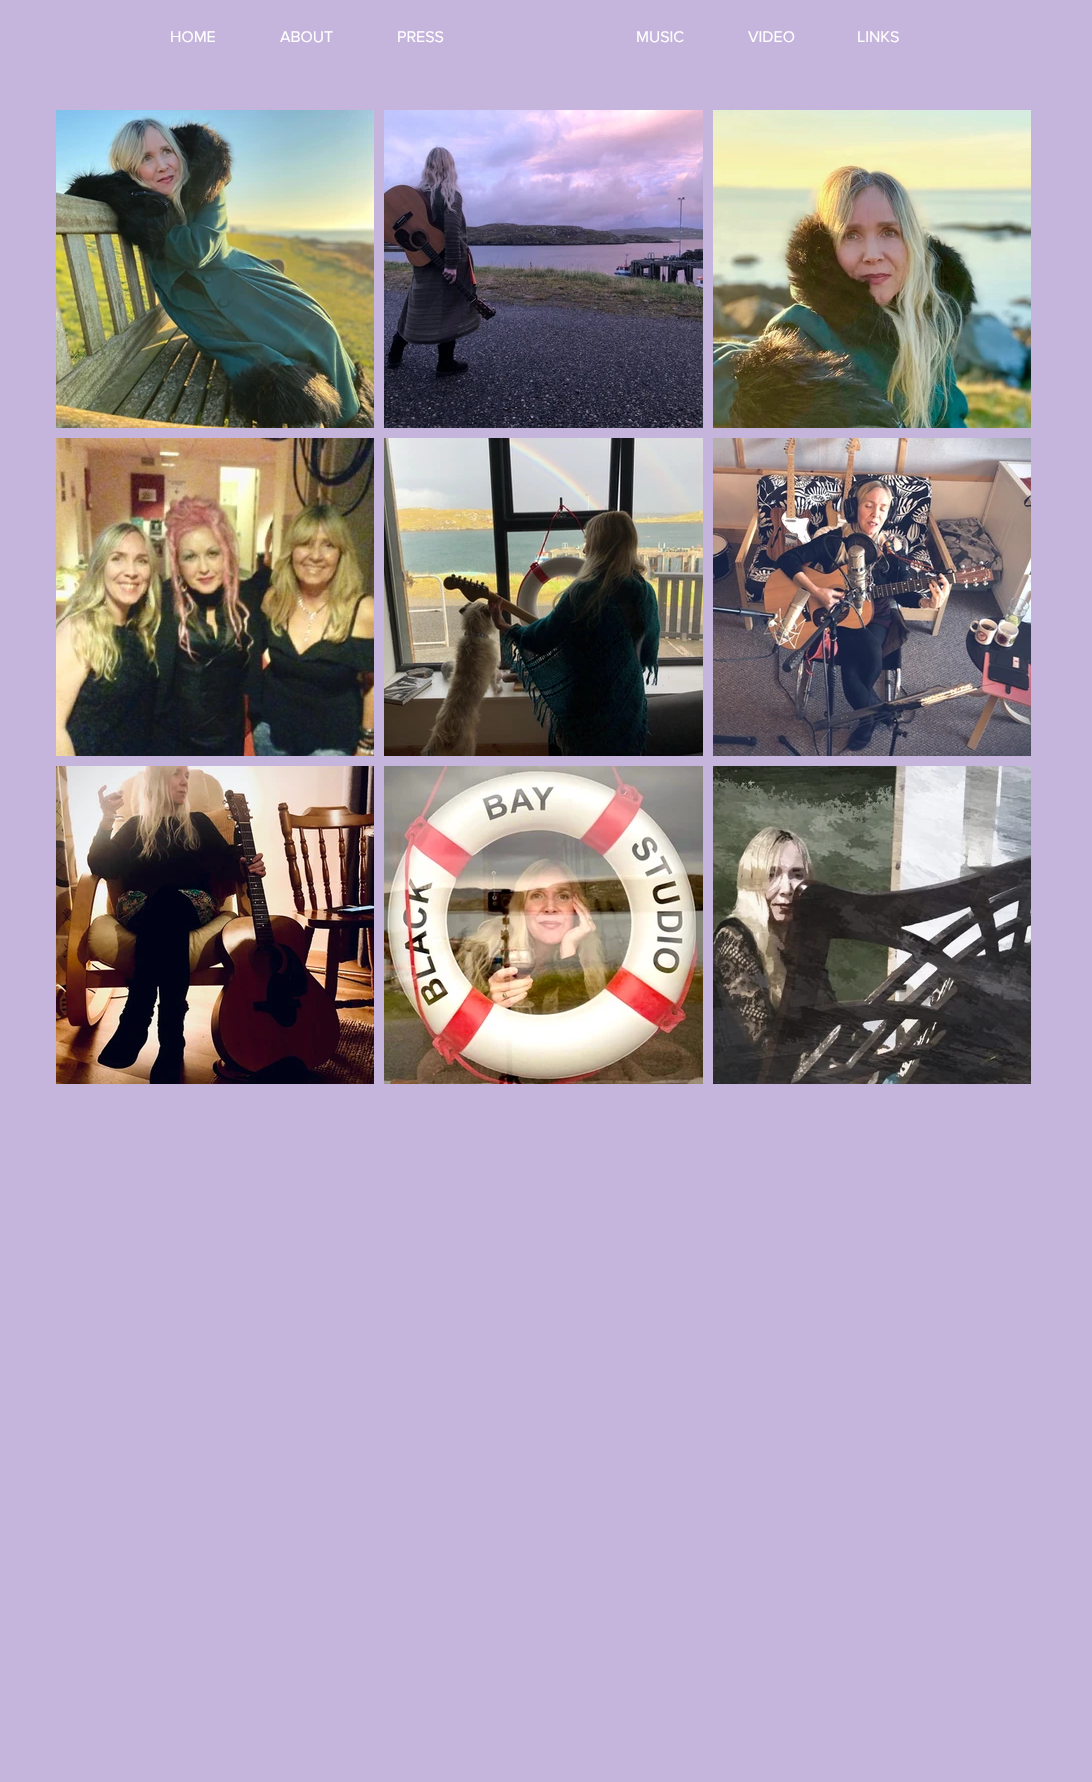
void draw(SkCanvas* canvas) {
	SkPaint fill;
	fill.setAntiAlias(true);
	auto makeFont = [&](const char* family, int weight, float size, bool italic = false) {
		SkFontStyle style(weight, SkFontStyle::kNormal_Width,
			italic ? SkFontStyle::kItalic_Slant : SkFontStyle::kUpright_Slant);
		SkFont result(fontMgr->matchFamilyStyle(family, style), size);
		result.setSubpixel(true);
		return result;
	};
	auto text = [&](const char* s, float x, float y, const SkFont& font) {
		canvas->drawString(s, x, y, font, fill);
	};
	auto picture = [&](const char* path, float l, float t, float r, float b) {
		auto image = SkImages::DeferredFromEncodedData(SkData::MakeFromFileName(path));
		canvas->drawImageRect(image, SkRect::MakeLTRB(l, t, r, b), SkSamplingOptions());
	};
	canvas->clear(0xFFC5B4DB);
	picture("image0.png", 56, 110, 374, 428);
	picture("image1.png", 384, 110, 703, 428);
	picture("image2.png", 713, 110, 1031, 428);
	picture("image3.png", 56, 438, 374, 756);
	picture("image4.png", 384, 438, 703, 756);
	picture("image5.png", 713, 438, 1031, 756);
	picture("image6.png", 56, 766, 374, 1084);
	picture("image7.png", 384, 766, 703, 1084);
	picture("image8.png", 713, 766, 1031, 1084);
	auto font1 = makeFont("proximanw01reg", 400, 16);
	fill.setColor(0xFFFFFFFF);
	text("HOME", 170, 42, font1);
	text("ABOUT", 280, 42, font1);
	text("PRESS", 397, 42, font1);
	text("MUSIC", 636, 42, font1);
	text("VIDEO", 748, 42, font1);
	text("LINKS", 857, 42, font1);
}
